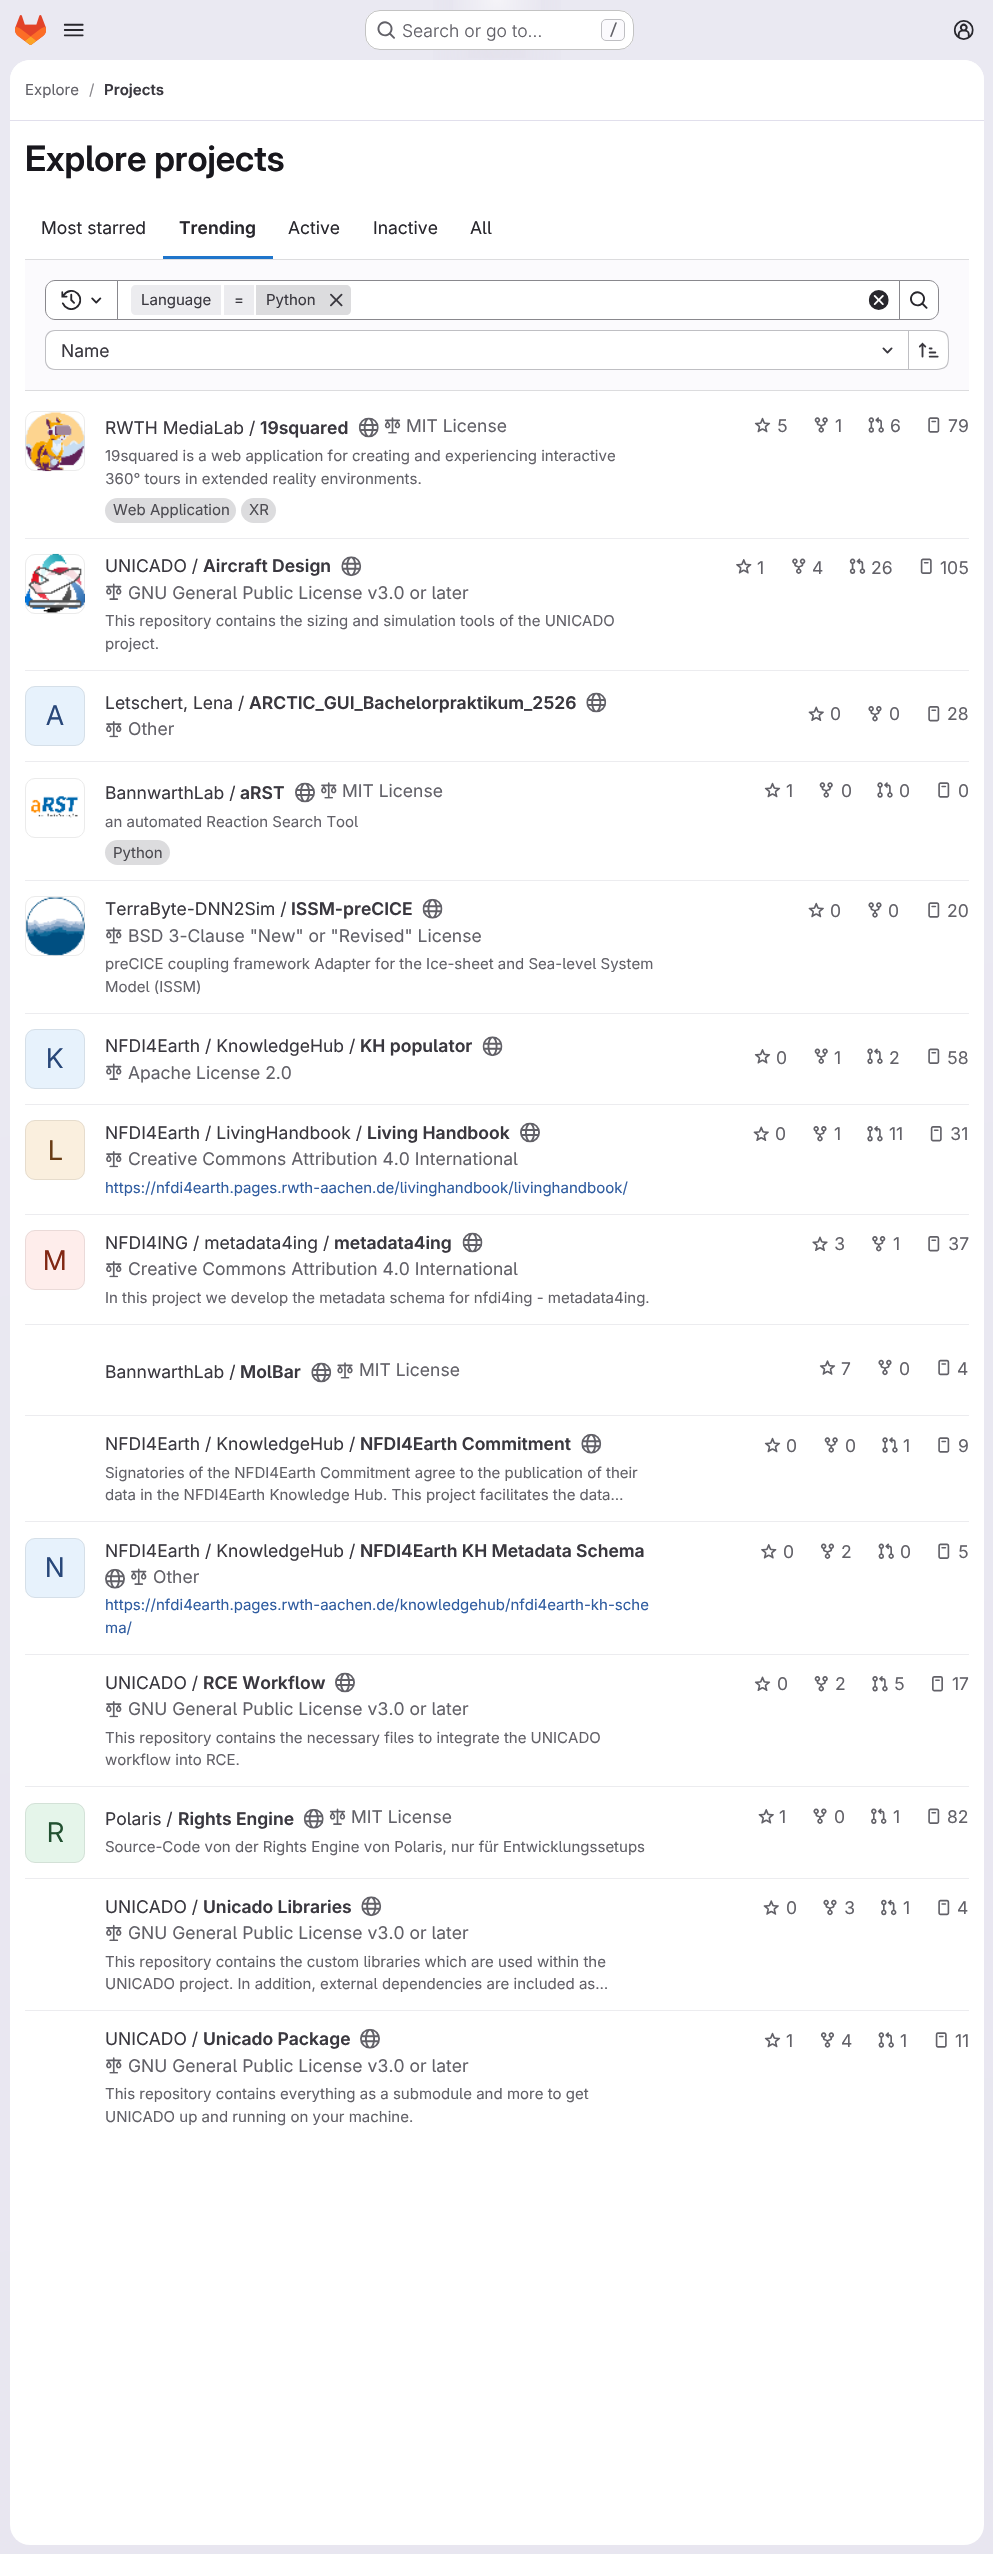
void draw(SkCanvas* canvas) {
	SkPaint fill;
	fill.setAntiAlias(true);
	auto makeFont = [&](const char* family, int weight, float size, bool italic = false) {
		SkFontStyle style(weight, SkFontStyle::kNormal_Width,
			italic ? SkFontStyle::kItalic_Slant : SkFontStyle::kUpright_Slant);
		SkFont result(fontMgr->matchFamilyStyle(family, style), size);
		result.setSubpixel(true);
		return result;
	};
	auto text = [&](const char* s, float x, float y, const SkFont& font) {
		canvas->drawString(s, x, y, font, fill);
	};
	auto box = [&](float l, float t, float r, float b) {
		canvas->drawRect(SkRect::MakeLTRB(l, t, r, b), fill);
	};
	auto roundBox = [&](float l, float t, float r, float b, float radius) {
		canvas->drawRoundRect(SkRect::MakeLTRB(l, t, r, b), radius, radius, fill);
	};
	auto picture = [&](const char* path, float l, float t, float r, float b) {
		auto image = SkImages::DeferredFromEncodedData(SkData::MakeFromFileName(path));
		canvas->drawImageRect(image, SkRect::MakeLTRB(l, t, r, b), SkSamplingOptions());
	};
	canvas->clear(0xFFFFFFFF);
	{
		const SkColor colors[] = {0xFFE8E6F0, 0xFFEAE9F2};
		const float stops[] = {0, 0.7f};
		const SkPoint ends[] = {{730, 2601}, {263, -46}};
		fill.setShader(SkGradientShader::MakeLinear(ends, colors, stops, 2, SkTileMode::kClamp));
		fill.setAlpha(255);
	}
	box(0, 0, 993, 2554);
	{
		const SkColor colors[] = {0xFFE4E2ED, 0x00E4E2ED};
		const float stops[] = {0, 0.18f};
		SkMatrix m = SkMatrix::Translate(497, 0).preScale(497, 2555);
		fill.setShader(SkGradientShader::MakeRadial({0, 0}, 1, colors, stops, 2, SkTileMode::kClamp, 0, &m));
		fill.setAlpha(255);
	}
	box(433, 0, 561, 60);
	{
		const SkColor colors[] = {0xFFE4E2EC, 0x00E4E2EC};
		const float stops[] = {0, 0.13f};
		SkMatrix m = SkMatrix::Translate(497, 0).preScale(497, 2555);
		fill.setShader(SkGradientShader::MakeRadial({0, 0}, 1, colors, stops, 2, SkTileMode::kClamp, 0, &m));
		fill.setAlpha(255);
	}
	box(468, 14, 526, 58);
	{
		const SkColor colors[] = {0x99FFFFFF, 0x00FFFFFF};
		const float stops[] = {0, 0.02f};
		fill.setShader(SkGradientShader::MakeRadial({497, 0}, 2603, colors, stops, 2, SkTileMode::kClamp));
		fill.setAlpha(255);
	}
	box(453, 0, 541, 10);
	picture("image0.png", 15, 15, 46, 45);
	picture("image1.png", 63, 23, 84, 37);
	fill.setShader(nullptr);
	fill.setColor(0xFFFFFFFF);
	roundBox(365, 10, 634, 50, 15);
	fill.setStyle(SkPaint::kStroke_Style);
	fill.setStrokeWidth(1);
	fill.setColor(0x3D050506);
	canvas->drawRoundRect(SkRect::MakeLTRB(365.5f, 10.5f, 633.5f, 49.5f), 14.5f, 14.5f, fill);
	picture("image2.png", 377, 21, 395, 39);
	fill.setStyle(SkPaint::kFill_Style);
	fill.setColor(0xFFFBFAFD);
	canvas->drawRoundRect(SkRect::MakeLTRB(601.5f, 19.5f, 624.5f, 40.5f), 4.5f, 4.5f, fill);
	fill.setStyle(SkPaint::kStroke_Style);
	fill.setColor(0xFFBFBFC3);
	canvas->drawRoundRect(SkRect::MakeLTRB(601.5f, 19.5f, 624.5f, 40.5f), 4.5f, 4.5f, fill);
	picture("image3.png", 953, 20, 974, 40);
	fill.setStyle(SkPaint::kFill_Style);
	fill.setColor(0xFFFFFFFF);
	roundBox(10, 60, 984, 2545, 20);
	canvas->drawPath(SkPathBuilder().moveTo(30, 60).lineTo(964, 60).cubicTo(975, 60, 984, 69, 984, 80).lineTo(984, 121).lineTo(10, 121).lineTo(10, 80).cubicTo(10, 69, 19, 60, 30, 60).close().detach(), fill);
	fill.setColor(0xFFE1DFEC);
	box(10, 120, 984, 121);
	fill.setColor(0xFF1F75CB);
	box(163, 256, 273, 259);
	fill.setColor(0xFFFBFAFD);
	box(25, 260, 969, 390);
	fill.setColor(0xFFDCDCDE);
	box(25, 259, 969, 260);
	box(25, 390, 969, 391);
	fill.setColor(0xFFFFFFFF);
	box(118, 281, 899, 319);
	fill.setStyle(SkPaint::kStroke_Style);
	fill.setColor(0xFF89888D);
	canvas->drawRect(SkRect::MakeLTRB(116.5f, 280.5f, 899.5f, 319.5f), fill);
	fill.setStyle(SkPaint::kFill_Style);
	fill.setColor(0xFFFFFFFF);
	canvas->drawPath(SkPathBuilder().moveTo(55, 280.5f).lineTo(117.5f, 280.5f).lineTo(117.5f, 319.5f).lineTo(55, 319.5f).cubicTo(50, 319.5f, 45.5f, 315, 45.5f, 310).lineTo(45.5f, 290).cubicTo(45.5f, 285, 50, 280.5f, 55, 280.5f).close().detach(), fill);
	fill.setStyle(SkPaint::kStroke_Style);
	fill.setColor(0xFF89888D);
	canvas->drawPath(SkPathBuilder().moveTo(55, 280.5f).lineTo(117.5f, 280.5f).lineTo(117.5f, 319.5f).lineTo(55, 319.5f).cubicTo(50, 319.5f, 45.5f, 315, 45.5f, 310).lineTo(45.5f, 290).cubicTo(45.5f, 285, 50, 280.5f, 55, 280.5f).close().detach(), fill);
	picture("image4.png", 61, 290, 82, 310);
	picture("image5.png", 91, 297, 102, 304);
	fill.setStyle(SkPaint::kFill_Style);
	fill.setColor(0xFFECECEF);
	canvas->drawPath(SkPathBuilder().moveTo(136, 285).lineTo(221, 285).lineTo(221, 315).lineTo(136, 315).cubicTo(133, 315, 131, 313, 131, 310).lineTo(131, 290).cubicTo(131, 287, 133, 285, 136, 285).close().detach(), fill);
	box(224, 285, 254, 315);
	fill.setColor(0xFFDCDCDE);
	canvas->drawPath(SkPathBuilder().moveTo(256, 285).lineTo(346, 285).cubicTo(349, 285, 351, 287, 351, 290).lineTo(351, 310).cubicTo(351, 313, 349, 315, 346, 315).lineTo(256, 315).close().detach(), fill);
	picture("image6.png", 330, 293, 343, 307);
	picture("image7.png", 868, 290, 889, 310);
	fill.setColor(0xFFFFFFFF);
	canvas->drawPath(SkPathBuilder().moveTo(899.5f, 280.5f).lineTo(929, 280.5f).cubicTo(934, 280.5f, 938.5f, 285, 938.5f, 290).lineTo(938.5f, 310).cubicTo(938.5f, 315, 934, 319.5f, 929, 319.5f).lineTo(899.5f, 319.5f).close().detach(), fill);
	fill.setStyle(SkPaint::kStroke_Style);
	fill.setColor(0xFF89888D);
	canvas->drawPath(SkPathBuilder().moveTo(899.5f, 280.5f).lineTo(929, 280.5f).cubicTo(934, 280.5f, 938.5f, 285, 938.5f, 290).lineTo(938.5f, 310).cubicTo(938.5f, 315, 934, 319.5f, 929, 319.5f).lineTo(899.5f, 319.5f).close().detach(), fill);
	picture("image8.png", 910, 291, 928, 309);
	fill.setStyle(SkPaint::kFill_Style);
	fill.setColor(0xFFFFFFFF);
	canvas->drawPath(SkPathBuilder().moveTo(55, 331).lineTo(908, 331).lineTo(908, 369).lineTo(55, 369).cubicTo(50, 369, 46, 365, 46, 360).lineTo(46, 340).cubicTo(46, 335, 50, 331, 55, 331).close().detach(), fill);
	fill.setColor(0xFFBFBFC3);
	canvas->drawPath(SkPathBuilder(SkPathFillType::kEvenOdd).moveTo(55, 330).lineTo(908, 330).lineTo(908, 370).lineTo(55, 370).cubicTo(49, 370, 45, 366, 45, 360).lineTo(45, 340).cubicTo(45, 334, 49, 330, 55, 330).close().moveTo(55, 331).lineTo(908, 331).lineTo(908, 369).lineTo(55, 369).cubicTo(50, 369, 46, 365, 46, 360).lineTo(46, 340).cubicTo(46, 335, 50, 331, 55, 331).close().detach(), fill);
	picture("image9.png", 882, 347, 893, 354);
	fill.setColor(0xFFFFFFFF);
	canvas->drawPath(SkPathBuilder().moveTo(909, 331).lineTo(939, 331).cubicTo(944, 331, 948, 335, 948, 340).lineTo(948, 360).cubicTo(948, 365, 944, 369, 939, 369).lineTo(909, 369).close().detach(), fill);
	fill.setColor(0xFFBFBFC3);
	canvas->drawPath(SkPathBuilder(SkPathFillType::kEvenOdd).moveTo(909, 330).lineTo(934, 330).cubicTo(950, 330, 949, 336, 949, 350).cubicTo(949, 364, 950, 370, 934, 370).lineTo(909, 370).close().moveTo(909, 331).lineTo(934, 331).cubicTo(949, 331, 948, 337, 948, 350).cubicTo(948, 363, 949, 369, 934, 369).lineTo(909, 369).close().detach(), fill);
	box(908, 330, 909, 370);
	picture("image10.png", 918, 342, 939, 358);
	fill.setColor(0xFFECECEF);
	box(25, 538, 969, 539);
	picture("image11.png", 25, 412, 85, 472);
	fill.setStyle(SkPaint::kStroke_Style);
	fill.setColor(0x14050506);
	canvas->drawRoundRect(SkRect::MakeLTRB(25.5f, 411.5f, 84.5f, 470.5f), 9.5f, 9.5f, fill);
	picture("image12.png", 358, 417, 379, 438);
	picture("image13.png", 384, 417, 401, 434);
	fill.setStyle(SkPaint::kFill_Style);
	fill.setColor(0xFFDCDCDE);
	roundBox(105, 498, 236, 523, 12.5f);
	roundBox(241, 498, 276, 523, 12.5f);
	picture("image14.png", 754, 417, 771, 433);
	picture("image15.png", 814, 417, 828, 433);
	picture("image16.png", 868, 417, 884, 433);
	picture("image17.png", 928, 417, 940, 433);
	fill.setColor(0xFFECECEF);
	box(25, 670, 969, 671);
	picture("image18.png", 25, 553, 85, 613);
	fill.setStyle(SkPaint::kStroke_Style);
	fill.setColor(0x14050506);
	canvas->drawRoundRect(SkRect::MakeLTRB(25.5f, 554.5f, 84.5f, 613.5f), 9.5f, 9.5f, fill);
	picture("image19.png", 341, 556, 362, 577);
	picture("image20.png", 106, 583, 122, 600);
	picture("image21.png", 736, 559, 752, 574);
	picture("image22.png", 792, 558, 806, 574);
	picture("image23.png", 849, 558, 866, 574);
	picture("image24.png", 920, 558, 932, 574);
	fill.setStyle(SkPaint::kFill_Style);
	fill.setColor(0xFFECECEF);
	box(25, 761, 969, 762);
	fill.setColor(0xFFE7F2FC);
	roundBox(25, 686, 85, 746, 10);
	fill.setStyle(SkPaint::kStroke_Style);
	fill.setColor(0x14050506);
	canvas->drawRoundRect(SkRect::MakeLTRB(25.5f, 686.5f, 84.5f, 745.5f), 9.5f, 9.5f, fill);
	picture("image25.png", 586, 692, 607, 713);
	picture("image26.png", 106, 721, 122, 738);
	picture("image27.png", 808, 706, 824, 721);
	picture("image28.png", 868, 706, 882, 722);
	picture("image29.png", 928, 706, 940, 722);
	fill.setStyle(SkPaint::kFill_Style);
	fill.setColor(0xFFECECEF);
	box(25, 880, 969, 881);
	picture("image30.png", 31, 796, 79, 818);
	fill.setStyle(SkPaint::kStroke_Style);
	fill.setColor(0xFFEBEBEB);
	canvas->drawRoundRect(SkRect::MakeLTRB(25.5f, 778.5f, 84.5f, 837.5f), 9.5f, 9.5f, fill);
	picture("image31.png", 295, 782, 315, 803);
	picture("image32.png", 321, 782, 337, 799);
	fill.setStyle(SkPaint::kFill_Style);
	fill.setColor(0xFFDCDCDE);
	roundBox(105, 840, 170, 865, 12.5f);
	picture("image33.png", 764, 782, 781, 798);
	picture("image34.png", 819, 782, 833, 798);
	picture("image35.png", 877, 782, 893, 798);
	picture("image17.png", 938, 782, 950, 798);
	fill.setColor(0xFFECECEF);
	box(25, 1013, 969, 1014);
	picture("image36.png", 26, 897, 85, 956);
	fill.setStyle(SkPaint::kStroke_Style);
	fill.setColor(0x14050506);
	canvas->drawRoundRect(SkRect::MakeLTRB(25.5f, 896.5f, 84.5f, 955.5f), 9.5f, 9.5f, fill);
	picture("image37.png", 422, 898, 443, 919);
	picture("image32.png", 106, 927, 122, 944);
	picture("image38.png", 808, 902, 824, 918);
	picture("image39.png", 868, 902, 882, 918);
	picture("image17.png", 928, 902, 940, 918);
	fill.setStyle(SkPaint::kFill_Style);
	fill.setColor(0xFFECECEF);
	box(25, 1104, 969, 1105);
	fill.setColor(0xFFE7F2FC);
	roundBox(25, 1029, 85, 1089, 10);
	fill.setStyle(SkPaint::kStroke_Style);
	fill.setColor(0x14050506);
	canvas->drawRoundRect(SkRect::MakeLTRB(25.5f, 1029.5f, 84.5f, 1088.5f), 9.5f, 9.5f, fill);
	picture("image40.png", 482, 1036, 503, 1057);
	picture("image20.png", 106, 1063, 122, 1080);
	picture("image41.png", 754, 1049, 771, 1064);
	picture("image42.png", 814, 1048, 828, 1064);
	picture("image43.png", 867, 1048, 883, 1064);
	picture("image44.png", 928, 1048, 940, 1064);
	fill.setStyle(SkPaint::kFill_Style);
	fill.setColor(0xFFECECEF);
	box(25, 1214, 969, 1215);
	picture("image31.png", 520, 1122, 540, 1143);
	picture("image26.png", 106, 1151, 122, 1168);
	picture("image45.png", 753, 1126, 769, 1141);
	picture("image28.png", 813, 1126, 827, 1142);
	picture("image46.png", 867, 1126, 883, 1142);
	picture("image47.png", 930, 1126, 942, 1142);
	fill.setColor(0xFFFAEFDE);
	roundBox(25, 1120, 85, 1180, 10);
	fill.setStyle(SkPaint::kStroke_Style);
	fill.setColor(0x14050506);
	canvas->drawRoundRect(SkRect::MakeLTRB(25.5f, 1120.5f, 84.5f, 1179.5f), 9.5f, 9.5f, fill);
	fill.setStyle(SkPaint::kFill_Style);
	fill.setColor(0xFFECECEF);
	box(25, 1324, 969, 1325);
	picture("image48.png", 462, 1232, 483, 1253);
	picture("image49.png", 106, 1261, 122, 1278);
	picture("image50.png", 812, 1236, 828, 1251);
	picture("image51.png", 872, 1236, 886, 1252);
	picture("image29.png", 928, 1236, 940, 1252);
	fill.setColor(0xFFFEEDEB);
	roundBox(25, 1230, 85, 1290, 10);
	fill.setStyle(SkPaint::kStroke_Style);
	fill.setColor(0x14050506);
	canvas->drawRoundRect(SkRect::MakeLTRB(25.5f, 1230.5f, 84.5f, 1289.5f), 9.5f, 9.5f, fill);
	fill.setStyle(SkPaint::kFill_Style);
	fill.setColor(0xFFECECEF);
	box(25, 1415, 969, 1416);
	picture("image25.png", 311, 1362, 332, 1383);
	picture("image52.png", 337, 1362, 353, 1379);
	picture("image53.png", 819, 1360, 836, 1375);
	picture("image54.png", 878, 1359, 892, 1376);
	picture("image55.png", 938, 1359, 950, 1376);
	box(25, 1521, 969, 1522);
	picture("image56.png", 581, 1433, 602, 1454);
	picture("image33.png", 764, 1437, 781, 1453);
	picture("image34.png", 824, 1437, 838, 1453);
	picture("image57.png", 882, 1437, 898, 1453);
	picture("image17.png", 938, 1437, 950, 1453);
	box(25, 1654, 969, 1655);
	picture("image58.png", 105, 1568, 125, 1589);
	picture("image20.png", 131, 1568, 147, 1585);
	picture("image59.png", 761, 1544, 777, 1559);
	picture("image60.png", 820, 1543, 835, 1559);
	picture("image61.png", 878, 1543, 894, 1559);
	picture("image44.png", 938, 1543, 950, 1559);
	fill.setColor(0xFFE7F2FC);
	roundBox(25, 1538, 85, 1598, 10);
	fill.setStyle(SkPaint::kStroke_Style);
	fill.setColor(0x14050506);
	canvas->drawRoundRect(SkRect::MakeLTRB(25.5f, 1538.5f, 84.5f, 1597.5f), 9.5f, 9.5f, fill);
	fill.setStyle(SkPaint::kFill_Style);
	fill.setColor(0xFFECECEF);
	box(25, 1786, 969, 1787);
	picture("image31.png", 335, 1672, 355, 1693);
	picture("image26.png", 106, 1701, 122, 1718);
	picture("image62.png", 754, 1676, 771, 1691);
	picture("image63.png", 814, 1676, 828, 1692);
	picture("image64.png", 872, 1676, 888, 1692);
	picture("image65.png", 932, 1676, 943, 1692);
	box(25, 1878, 969, 1879);
	picture("image66.png", 303, 1808, 324, 1829);
	picture("image67.png", 329, 1808, 346, 1825);
	picture("image68.png", 758, 1809, 774, 1824);
	picture("image69.png", 813, 1808, 827, 1824);
	picture("image70.png", 871, 1808, 887, 1824);
	picture("image44.png", 928, 1808, 940, 1824);
	fill.setColor(0xFFE5F5EA);
	roundBox(25, 1803, 85, 1863, 10);
	fill.setStyle(SkPaint::kStroke_Style);
	fill.setColor(0x14050506);
	canvas->drawRoundRect(SkRect::MakeLTRB(25.5f, 1803.5f, 84.5f, 1862.5f), 9.5f, 9.5f, fill);
	fill.setStyle(SkPaint::kFill_Style);
	fill.setColor(0xFFECECEF);
	box(25, 2010, 969, 2011);
	picture("image19.png", 361, 1896, 382, 1917);
	picture("image71.png", 106, 1924, 122, 1941);
	picture("image72.png", 763, 1900, 779, 1915);
	picture("image73.png", 823, 1899, 837, 1916);
	picture("image74.png", 881, 1899, 897, 1916);
	picture("image55.png", 938, 1899, 950, 1916);
	picture("image75.png", 360, 2028, 380, 2049);
	picture("image32.png", 106, 2057, 122, 2074);
	picture("image33.png", 764, 2032, 781, 2048);
	picture("image76.png", 820, 2032, 834, 2048);
	picture("image77.png", 878, 2032, 894, 2048);
	picture("image78.png", 935, 2032, 947, 2048);
	auto font1 = makeFont("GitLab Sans", 300, 17.5f);
	fill.setColor(0xFF626168);
	text("Search or go to…", 402, 37, font1);
	auto font2 = makeFont("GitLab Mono", 500, 15);
	text("/", 609, 35, font2);
	auto font3 = makeFont("GitLab Sans", 400, 15);
	text("Explore", 25, 95, font3);
	fill.setColor(0xFF89888D);
	text("/", 89, 95, font3);
	auto font4 = makeFont("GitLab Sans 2", 600, 15);
	fill.setColor(0xFF3A383F);
	text("Projects", 104, 95, font4);
	auto font5 = makeFont("GitLab Sans", 600, 35);
	fill.setColor(0xFF18171D);
	text("Explore projects", 25, 171, font5);
	auto font6 = makeFont("GitLab Sans", 400, 17.5f);
	fill.setColor(0xFF28272D);
	text("Most starred", 41, 234, font6);
	auto font7 = makeFont("GitLab Sans 2", 600, 17.5f);
	text("Trending", 179, 234, font7);
	text("Active", 288, 234, font6);
	text("Inactive", 373, 234, font6);
	text("All", 470, 234, font6);
	fill.setColor(0xFF3A383F);
	text("Language", 141, 305, font3);
	text("=", 234, 305, font3);
	text("Python", 266, 305, font3);
	text("Name", 61, 357, font6);
	text("RWTH MediaLab /", 105, 434, font6);
	text("19squared", 260, 434, font7);
	fill.setColor(0xFF626168);
	text("MIT License", 406, 432, font6);
	text("19squared is a web application for creating and experiencing interactive", 105, 461, font3);
	text("360° tours in extended reality environments.", 105, 484, font3);
	fill.setColor(0xFF4C4B51);
	text("Web Application", 113, 515, font3);
	text("XR", 249, 515, font3);
	fill.setColor(0xFF626168);
	text("5", 777, 432, font6);
	text("1", 835, 432, font6);
	text("6", 890, 432, font6);
	text("79", 948, 432, font6);
	fill.setColor(0xFF3A383F);
	text("UNICADO /", 105, 572, font6);
	text("Aircraft Design", 203, 572, font7);
	fill.setColor(0xFF626168);
	text("GNU General Public License v3.0 or later", 128, 599, font6);
	text("This repository contains the sizing and simulation tools of the UNICADO", 105, 626, font3);
	text("project.", 105, 649, font3);
	text("1", 757, 574, font6);
	text("4", 812, 574, font6);
	text("26", 871, 574, font6);
	text("105", 940, 574, font6);
	auto font8 = makeFont("GitLab Sans 2", 400, 27);
	fill.setColor(0xFF284779);
	text("A", 46, 725, font8);
	fill.setColor(0xFF3A383F);
	text("Letschert, Lena /", 105, 709, font6);
	text("ARCTIC_GUI_Bachelorpraktikum_2526", 249, 709, font7);
	fill.setColor(0xFF626168);
	text("Other", 128, 735, font6);
	text("0", 830, 720, font6);
	text("0", 889, 720, font6);
	text("28", 947, 720, font6);
	fill.setColor(0xFF3A383F);
	text("BannwarthLab /", 105, 799, font6);
	text("aRST", 240, 799, font7);
	fill.setColor(0xFF626168);
	text("MIT License", 342, 797, font6);
	text("an automated Reaction Search Tool", 105, 827, font3);
	fill.setColor(0xFF4C4B51);
	text("Python", 113, 858, font3);
	fill.setColor(0xFF626168);
	text("1", 786, 797, font6);
	text("0", 841, 797, font6);
	text("0", 899, 797, font6);
	text("0", 958, 797, font6);
	fill.setColor(0xFF3A383F);
	text("TerraByte-DNN2Sim /", 105, 915, font6);
	text("ISSM-preCICE", 291, 915, font7);
	fill.setColor(0xFF626168);
	text("BSD 3-Clause \"New\" or \"Revised\" License", 128, 942, font6);
	text("preCICE coupling framework Adapter for the Ice-sheet and Sea-level System", 105, 969, font3);
	text("Model (ISSM)", 105, 992, font3);
	text("0", 830, 917, font6);
	text("0", 888, 917, font6);
	text("20", 947, 917, font6);
	fill.setColor(0xFF284779);
	text("K", 46, 1068, font8);
	fill.setColor(0xFF3A383F);
	text("NFDI4Earth / KnowledgeHub /", 105, 1052, font6);
	text("KH populator", 360, 1052, font7);
	fill.setColor(0xFF626168);
	text("Apache License 2.0", 128, 1079, font6);
	text("0", 776, 1064, font6);
	text("1", 834, 1064, font6);
	text("2", 889, 1064, font6);
	text("58", 947, 1064, font6);
	fill.setColor(0xFF3A383F);
	text("NFDI4Earth / LivingHandbook /", 105, 1139, font6);
	text("Living Handbook", 367, 1139, font7);
	fill.setColor(0xFF626168);
	text("Creative Commons Attribution 4.0 International", 128, 1165, font6);
	fill.setColor(0xFF2F5CA0);
	text("https://nfdi4earth.pages.rwth-aachen.de/livinghandbook/livinghandbook/", 105, 1193, font3);
	fill.setColor(0xFF626168);
	text("0", 775, 1140, font6);
	text("1", 834, 1140, font6);
	text("11", 889, 1140, font6);
	text("31", 950, 1140, font6);
	fill.setColor(0xFF693C14);
	text("L", 48, 1160, font8);
	fill.setColor(0xFF3A383F);
	text("NFDI4ING / metadata4ing /", 105, 1249, font6);
	text("metadata4ing", 334, 1249, font7);
	fill.setColor(0xFF626168);
	text("Creative Commons Attribution 4.0 International", 128, 1275, font6);
	text("In this project we develop the metadata schema for nfdi4ing - metadata4ing.", 105, 1303, font3);
	text("3", 834, 1250, font6);
	text("1", 893, 1250, font6);
	text("37", 948, 1250, font6);
	fill.setColor(0xFF812713);
	text("M", 43, 1270, font8);
	fill.setColor(0xFF3A383F);
	text("BannwarthLab /", 105, 1378, font6);
	text("MolBar", 240, 1378, font7);
	fill.setColor(0xFF626168);
	text("MIT License", 359, 1376, font6);
	text("7", 841, 1375, font6);
	text("0", 899, 1375, font6);
	text("4", 957, 1375, font6);
	fill.setColor(0xFF3A383F);
	text("NFDI4Earth / KnowledgeHub /", 105, 1450, font6);
	text("NFDI4Earth Commitment", 360, 1450, font7);
	fill.setColor(0xFF626168);
	text("Signatories of the NFDI4Earth Commitment agree to the publication of their", 105, 1478, font3);
	text("data in the NFDI4Earth Knowledge Hub. This project facilitates the data…", 105, 1500, font3);
	text("0", 786, 1452, font6);
	text("0", 845, 1452, font6);
	text("1", 903, 1452, font6);
	text("9", 958, 1452, font6);
	fill.setColor(0xFF3A383F);
	text("NFDI4Earth / KnowledgeHub /", 105, 1557, font6);
	text("NFDI4Earth KH Metadata Schema", 360, 1557, font7);
	fill.setColor(0xFF626168);
	text("Other", 153, 1583, font6);
	fill.setColor(0xFF2F5CA0);
	text("https://nfdi4earth.pages.rwth-aachen.de/knowledgehub/nfdi4earth-kh-sche", 105, 1610, font3);
	text("ma/", 105, 1633, font3);
	fill.setColor(0xFF626168);
	text("0", 783, 1558, font6);
	text("2", 841, 1558, font6);
	text("0", 900, 1558, font6);
	text("5", 958, 1558, font6);
	fill.setColor(0xFF284779);
	text("N", 45, 1577, font8);
	fill.setColor(0xFF3A383F);
	text("UNICADO /", 105, 1689, font6);
	text("RCE Workflow", 203, 1689, font7);
	fill.setColor(0xFF626168);
	text("GNU General Public License v3.0 or later", 128, 1715, font6);
	text("This repository contains the necessary files to integrate the UNICADO", 105, 1743, font3);
	text("workflow into RCE.", 105, 1765, font3);
	text("0", 777, 1690, font6);
	text("2", 835, 1690, font6);
	text("5", 894, 1690, font6);
	text("17", 952, 1690, font6);
	fill.setColor(0xFF3A383F);
	text("Polaris /", 105, 1825, font6);
	text("Rights Engine", 178, 1825, font7);
	fill.setColor(0xFF626168);
	text("MIT License", 351, 1823, font6);
	text("Source-Code von der Rights Engine von Polaris, nur für Entwicklungssetups", 105, 1852, font3);
	text("1", 779, 1823, font6);
	text("0", 834, 1823, font6);
	text("1", 893, 1823, font6);
	text("82", 947, 1823, font6);
	auto font9 = makeFont("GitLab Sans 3", 400, 27);
	fill.setColor(0xFF225131);
	text("R", 47, 1842, font9);
	fill.setColor(0xFF3A383F);
	text("UNICADO /", 105, 1913, font6);
	text("Unicado Libraries", 203, 1913, font7);
	fill.setColor(0xFF626168);
	text("GNU General Public License v3.0 or later", 128, 1939, font6);
	text("This repository contains the custom libraries which are used within the", 105, 1967, font3);
	text("UNICADO project. In addition, external dependencies are included as…", 105, 1989, font3);
	text("0", 786, 1914, font6);
	text("3", 844, 1914, font6);
	text("1", 903, 1914, font6);
	text("4", 957, 1914, font6);
	fill.setColor(0xFF3A383F);
	text("UNICADO /", 105, 2045, font6);
	text("Unicado Package", 203, 2045, font7);
	fill.setColor(0xFF626168);
	text("GNU General Public License v3.0 or later", 128, 2072, font6);
	text("This repository contains everything as a submodule and more to get", 105, 2099, font3);
	text("UNICADO up and running on your machine.", 105, 2122, font3);
	text("1", 786, 2047, font6);
	text("4", 841, 2047, font6);
	text("1", 900, 2047, font6);
	text("11", 955, 2047, font6);
}
